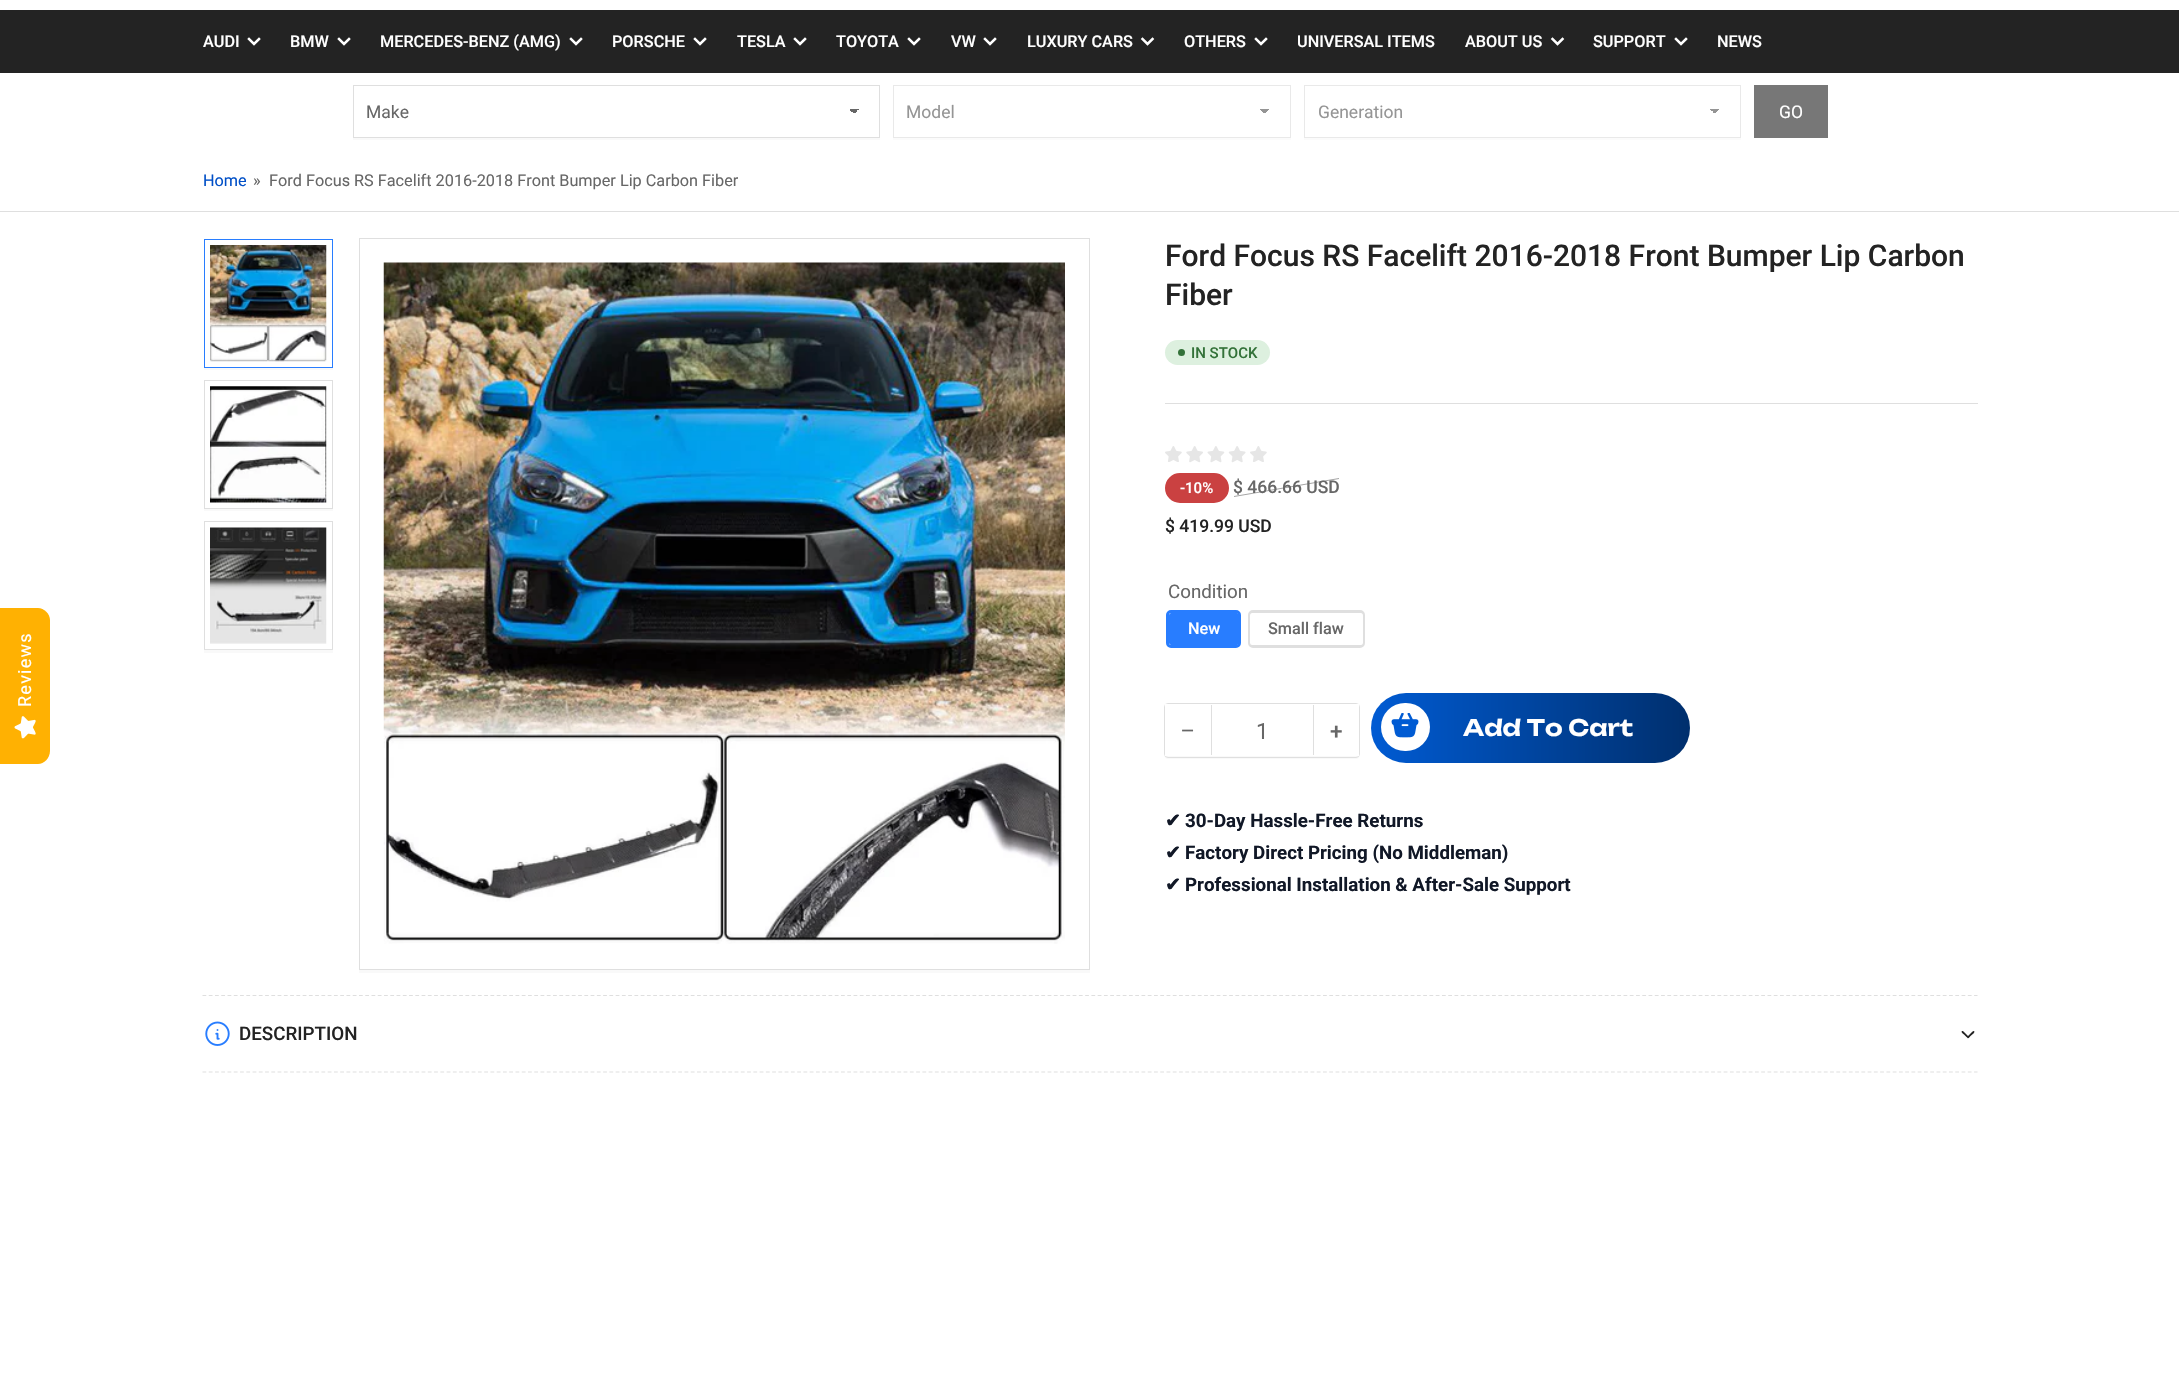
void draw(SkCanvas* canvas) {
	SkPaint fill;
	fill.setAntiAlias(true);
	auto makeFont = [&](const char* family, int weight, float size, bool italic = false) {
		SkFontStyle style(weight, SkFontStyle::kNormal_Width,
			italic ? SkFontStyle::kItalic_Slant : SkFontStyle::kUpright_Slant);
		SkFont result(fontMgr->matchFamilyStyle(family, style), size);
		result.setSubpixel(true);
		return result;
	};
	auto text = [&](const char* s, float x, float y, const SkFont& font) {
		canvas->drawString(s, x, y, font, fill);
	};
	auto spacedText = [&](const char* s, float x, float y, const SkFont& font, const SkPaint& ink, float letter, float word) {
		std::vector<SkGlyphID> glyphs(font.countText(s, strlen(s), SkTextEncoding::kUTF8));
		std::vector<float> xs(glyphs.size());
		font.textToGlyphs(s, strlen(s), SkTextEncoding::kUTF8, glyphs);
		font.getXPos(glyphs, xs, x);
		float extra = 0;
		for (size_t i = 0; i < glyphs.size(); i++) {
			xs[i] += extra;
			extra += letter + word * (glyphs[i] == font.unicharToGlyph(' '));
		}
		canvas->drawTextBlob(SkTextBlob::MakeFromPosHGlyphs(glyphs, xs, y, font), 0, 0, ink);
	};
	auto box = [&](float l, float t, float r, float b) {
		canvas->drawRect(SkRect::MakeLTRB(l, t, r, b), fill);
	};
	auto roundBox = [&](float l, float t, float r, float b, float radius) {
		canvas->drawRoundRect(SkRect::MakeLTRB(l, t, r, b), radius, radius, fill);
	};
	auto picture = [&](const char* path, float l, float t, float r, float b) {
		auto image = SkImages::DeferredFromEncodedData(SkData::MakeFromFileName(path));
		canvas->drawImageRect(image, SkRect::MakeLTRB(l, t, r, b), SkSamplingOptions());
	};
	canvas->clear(0xFFFFFFFF);
	fill.setColor(0xFF232323);
	box(0, 10, 2179, 73);
	fill.setStyle(SkPaint::kStroke_Style);
	fill.setStrokeWidth(2.5f);
	fill.setStrokeCap(SkPaint::kSquare_Cap);
	fill.setColor(0xFFFFFFFF);
	canvas->drawPath(SkPathBuilder().moveTo(259, 39).lineTo(254, 44).lineTo(249, 39).detach(), fill);
	canvas->drawPath(SkPathBuilder().moveTo(349, 39).lineTo(344, 44).lineTo(339, 39).detach(), fill);
	canvas->drawPath(SkPathBuilder().moveTo(581, 39).lineTo(576, 44).lineTo(571, 39).detach(), fill);
	canvas->drawPath(SkPathBuilder().moveTo(705, 39).lineTo(700, 44).lineTo(695, 39).detach(), fill);
	canvas->drawPath(SkPathBuilder().moveTo(805, 39).lineTo(800, 44).lineTo(795, 39).detach(), fill);
	canvas->drawPath(SkPathBuilder().moveTo(919, 39).lineTo(914, 44).lineTo(909, 39).detach(), fill);
	canvas->drawPath(SkPathBuilder().moveTo(995, 39).lineTo(990, 44).lineTo(985, 39).detach(), fill);
	canvas->drawPath(SkPathBuilder().moveTo(1152.5f, 39).lineTo(1147.5f, 44).lineTo(1142.5f, 39).detach(), fill);
	canvas->drawPath(SkPathBuilder().moveTo(1266, 39).lineTo(1261, 44).lineTo(1256, 39).detach(), fill);
	canvas->drawPath(SkPathBuilder().moveTo(1562.5f, 39).lineTo(1557.5f, 44).lineTo(1552.5f, 39).detach(), fill);
	canvas->drawPath(SkPathBuilder().moveTo(1686, 39).lineTo(1681, 44).lineTo(1676, 39).detach(), fill);
	fill.setStyle(SkPaint::kFill_Style);
	fill.setColor(0xFFF9F9F9);
	box(353, 138, 880, 140);
	{
		const SkColor colors[] = {0xFF676767, 0xFFFFFFFF};
		const float stops[] = {0.5f, 0.5f};
		const SkPoint ends[] = {{854, 108}, {860, 114}};
		fill.setShader(SkGradientShader::MakeLinear(ends, colors, stops, 2, SkTileMode::kClamp));
		fill.setAlpha(255);
	}
	box(854, 109, 860, 113);
	{
		const SkColor colors[] = {0xFFFFFFFF, 0xFF676767};
		const float stops[] = {0.5f, 0.5f};
		const SkPoint ends[] = {{848, 114}, {854, 108}};
		fill.setShader(SkGradientShader::MakeLinear(ends, colors, stops, 2, SkTileMode::kClamp));
		fill.setAlpha(255);
	}
	box(848, 109, 854, 113);
	fill.setStyle(SkPaint::kStroke_Style);
	fill.setStrokeWidth(1);
	fill.setStrokeCap(SkPaint::kButt_Cap);
	fill.setShader(nullptr);
	fill.setColor(0xFFDFDFDF);
	canvas->drawRect(SkRect::MakeLTRB(353.5f, 85.5f, 879.5f, 137.5f), fill);
	fill.setStyle(SkPaint::kFill_Style);
	fill.setColor(0xFFFBFBFB);
	box(893, 138, 1291, 140);
	{
		const SkColor colors[] = {0xFF959595, 0xFFFFFFFF};
		const float stops[] = {0.5f, 0.5f};
		const SkPoint ends[] = {{1265, 108}, {1271, 114}};
		fill.setShader(SkGradientShader::MakeLinear(ends, colors, stops, 2, SkTileMode::kClamp));
		fill.setAlpha(255);
	}
	box(1265, 109, 1271, 113);
	{
		const SkColor colors[] = {0xFFFFFFFF, 0xFF959595};
		const float stops[] = {0.5f, 0.5f};
		const SkPoint ends[] = {{1259, 114}, {1265, 108}};
		fill.setShader(SkGradientShader::MakeLinear(ends, colors, stops, 2, SkTileMode::kClamp));
		fill.setAlpha(255);
	}
	box(1259, 109, 1265, 113);
	fill.setStyle(SkPaint::kStroke_Style);
	fill.setShader(nullptr);
	fill.setColor(0xFFE9E9E9);
	canvas->drawRect(SkRect::MakeLTRB(893.5f, 85.5f, 1290.5f, 137.5f), fill);
	fill.setStyle(SkPaint::kFill_Style);
	fill.setColor(0xFFFBFBFB);
	box(1304, 138, 1741, 140);
	{
		const SkColor colors[] = {0xFF959595, 0xFFFFFFFF};
		const float stops[] = {0.5f, 0.5f};
		const SkPoint ends[] = {{1715, 108}, {1721, 114}};
		fill.setShader(SkGradientShader::MakeLinear(ends, colors, stops, 2, SkTileMode::kClamp));
		fill.setAlpha(255);
	}
	box(1715, 109, 1721, 113);
	{
		const SkColor colors[] = {0xFFFFFFFF, 0xFF959595};
		const float stops[] = {0.5f, 0.5f};
		const SkPoint ends[] = {{1709, 114}, {1715, 108}};
		fill.setShader(SkGradientShader::MakeLinear(ends, colors, stops, 2, SkTileMode::kClamp));
		fill.setAlpha(255);
	}
	box(1709, 109, 1715, 113);
	fill.setStyle(SkPaint::kStroke_Style);
	fill.setShader(nullptr);
	fill.setColor(0xFFE9E9E9);
	canvas->drawRect(SkRect::MakeLTRB(1304.5f, 85.5f, 1740.5f, 137.5f), fill);
	fill.setStyle(SkPaint::kFill_Style);
	fill.setColor(0xFF777777);
	box(1754, 85, 1828, 138);
	fill.setColor(0xFFFFB102);
	canvas->drawPath(SkPathBuilder().moveTo(0, 764).lineTo(0, 608).lineTo(38, 608).cubicTo(44, 608, 50, 614, 50, 620).lineTo(50, 751).cubicTo(50, 758, 44, 764, 38, 764).close().detach(), fill);
	picture("image0.png", 14, 716, 36, 739);
	fill.setColor(0xFFDFDFDF);
	box(0, 211, 2179, 212);
	fill.setColor(0xFFF9F9F9);
	canvas->drawPath(SkPathBuilder().moveTo(204, 368).lineTo(204, 370).lineTo(333, 370).lineTo(333, 241).lineTo(332, 241).lineTo(332, 368).close().detach(), fill);
	fill.setStyle(SkPaint::kStroke_Style);
	fill.setColor(0xFF287DFF);
	canvas->drawRect(SkRect::MakeLTRB(204.5f, 239.5f, 332.5f, 367.5f), fill);
	picture("image1.png", 210, 245, 327, 362);
	fill.setStyle(SkPaint::kFill_Style);
	fill.setColor(0xFFF9F9F9);
	canvas->drawPath(SkPathBuilder().moveTo(204, 509).lineTo(204, 511).lineTo(333, 511).lineTo(333, 383).lineTo(332, 383).lineTo(332, 509).close().detach(), fill);
	fill.setStyle(SkPaint::kStroke_Style);
	fill.setColor(0xFFDFDFDF);
	canvas->drawRect(SkRect::MakeLTRB(204.5f, 380.5f, 332.5f, 508.5f), fill);
	picture("image2.png", 210, 386, 327, 503);
	fill.setStyle(SkPaint::kFill_Style);
	fill.setColor(0xFFF9F9F9);
	canvas->drawPath(SkPathBuilder().moveTo(204, 650).lineTo(204, 653).lineTo(333, 653).lineTo(333, 524).lineTo(332, 524).lineTo(332, 650).close().detach(), fill);
	fill.setStyle(SkPaint::kStroke_Style);
	fill.setColor(0xFFDFDFDF);
	canvas->drawRect(SkRect::MakeLTRB(204.5f, 521.5f, 332.5f, 649.5f), fill);
	picture("image3.png", 210, 527, 327, 644);
	fill.setStyle(SkPaint::kFill_Style);
	{
		const SkColor colors[] = {0xFFFFFFFF, 0x00FFFFFF};
		const float stops[] = {0, 1};
		const SkPoint ends[] = {{268, 689}, {268, 645}};
		fill.setShader(SkGradientShader::MakeLinear(ends, colors, stops, 2, SkTileMode::kClamp));
		fill.setAlpha(255);
	}
	box(204, 649, 333, 650);
	fill.setShader(nullptr);
	fill.setColor(0xFFF9F9F9);
	box(359, 970, 1090, 973);
	fill.setStyle(SkPaint::kStroke_Style);
	fill.setColor(0xFFDFDFDF);
	canvas->drawRect(SkRect::MakeLTRB(359.5f, 238.5f, 1089.5f, 969.5f), fill);
	picture("image4.png", 383, 262, 1065, 944);
	fill.setStyle(SkPaint::kFill_Style);
	box(1165, 403, 1978, 404);
	fill.setColor(0xFFDDF0DF);
	roundBox(1165, 340, 1270, 365, 12.5f);
	fill.setColor(0xFF337239);
	canvas->drawCircle(1181.5f, 352.5f, 3.5f, fill);
	picture("image5.png", 1165, 446, 1182, 462);
	picture("image6.png", 1186, 446, 1203, 463);
	picture("image7.png", 1207, 446, 1225, 463);
	picture("image8.png", 1228, 446, 1246, 463);
	picture("image5.png", 1250, 446, 1267, 462);
	fill.setColor(0xFFCA4141);
	canvas->drawRoundRect(SkRect::MakeLTRB(1166.5f, 474.5f, 1227.5f, 501.5f), 13.5f, 13.5f, fill);
	fill.setStyle(SkPaint::kStroke_Style);
	fill.setStrokeWidth(3);
	canvas->drawRoundRect(SkRect::MakeLTRB(1166.5f, 474.5f, 1227.5f, 501.5f), 13.5f, 13.5f, fill);
	fill.setColor(0xFF287DFF);
	canvas->drawRoundRect(SkRect::MakeLTRB(1167.5f, 611.5f, 1239.5f, 646.5f), 3.5f, 3.5f, fill);
	fill.setStyle(SkPaint::kFill_Style);
	roundBox(1169, 613, 1239, 645, 2.5f);
	fill.setStyle(SkPaint::kStroke_Style);
	fill.setColor(0xFFDFDFDF);
	canvas->drawRoundRect(SkRect::MakeLTRB(1249.5f, 611.5f, 1363.5f, 646.5f), 3.5f, 3.5f, fill);
	fill.setStyle(SkPaint::kFill_Style);
	fill.setColor(0xFFFFFFFF);
	roundBox(1250, 613, 1363, 645, 2.5f);
	fill.setColor(0xFFF9F9F9);
	canvas->drawPath(SkPathBuilder().moveTo(1165, 754).lineTo(1165, 756).cubicTo(1165, 758, 1166, 759, 1168, 759).lineTo(1356, 759).cubicTo(1358, 759, 1359, 758, 1359, 756).lineTo(1359, 707).lineTo(1359, 754).cubicTo(1359, 755, 1358, 756, 1356, 756).lineTo(1168, 756).cubicTo(1166, 756, 1165, 755, 1165, 754).close().detach(), fill);
	fill.setStyle(SkPaint::kStroke_Style);
	fill.setStrokeWidth(1);
	fill.setColor(0xFFDFDFDF);
	canvas->drawRoundRect(SkRect::MakeLTRB(1164.5f, 703.5f, 1359.5f, 757.5f), 3.5f, 3.5f, fill);
	fill.setStyle(SkPaint::kFill_Style);
	fill.setColor(0xFFFFFFFF);
	box(1165, 704, 1168, 756);
	fill.setColor(0xFFDFDFDF);
	box(1313, 705, 1314, 755);
	box(1211, 705, 1212, 755);
	fill.setColor(0xFFFFFFFF);
	box(1356, 704, 1359, 756);
	{
		const SkColor colors[] = {0xFF005BD3, 0xFF002F6D};
		const float stops[] = {0, 1};
		const SkPoint ends[] = {{1371, 728}, {1690, 728}};
		fill.setShader(SkGradientShader::MakeLinear(ends, colors, stops, 2, SkTileMode::kClamp));
		fill.setAlpha(255);
	}
	roundBox(1371, 693, 1690, 763, 35);
	fill.setShader(nullptr);
	fill.setColor(0xFFFFFFFF);
	roundBox(1381, 703, 1430, 751, 24);
	picture("image9.png", 1391, 713, 1419, 738);
	fill.setStyle(SkPaint::kStroke_Style);
	fill.setStrokeWidth(1.2f);
	fill.setColor(0xFFDFDFDF);
	fill.setPathEffect(SkDashPathEffect::Make({{3.75f, 2.51f}}, 0));
	canvas->drawPath(SkPathBuilder().moveTo(202.5f, 995.5f).lineTo(1977.5f, 995.5f).detach(), fill);
	fill.setPathEffect(nullptr);
	fill.setPathEffect(SkDashPathEffect::Make({{3.75f, 2.51f}}, 0));
	canvas->drawPath(SkPathBuilder().moveTo(202.5f, 1072).lineTo(1977.5f, 1072).detach(), fill);
	fill.setPathEffect(nullptr);
	picture("image10.png", 205, 1021, 230, 1046);
	fill.setStyle(SkPaint::kFill_Style);
	fill.setColor(0xFF232323);
	canvas->drawPath(SkPathBuilder().moveTo(1963.5f, 1031.5f).lineTo(1967.5f, 1035.5f).cubicTo(1970, 1038, 1968.5f, 1039, 1966.5f, 1037).lineTo(1964, 1034.5f).cubicTo(1963.5f, 1034, 1960.5f, 1032, 1962, 1031).cubicTo(1962.5f, 1031, 1963, 1031, 1963.5f, 1031.5f).close().detach(), fill);
	canvas->drawPath(SkPathBuilder().moveTo(1967.5f, 1036.5f).lineTo(1972, 1032).cubicTo(1974, 1030, 1975.5f, 1031.5f, 1973.5f, 1033.5f).lineTo(1970.5f, 1036).cubicTo(1970, 1036.5f, 1968.5f, 1039, 1967.5f, 1038).cubicTo(1967.5f, 1037.5f, 1967.5f, 1037, 1967.5f, 1036.5f).close().detach(), fill);
	auto font1 = makeFont("Roboto", 500, 16.25f);
	fill.setColor(0xFFFFFFFF);
	text("AUDI", 203, 47, font1);
	text("BMW", 290, 47, font1);
	text("MERCEDES-BENZ (AMG)", 380, 47, font1);
	text("PORSCHE", 612, 47, font1);
	text("TESLA", 737, 47, font1);
	text("TOYOTA", 836, 47, font1);
	text("VW", 951, 47, font1);
	text("LUXURY CARS", 1027, 47, font1);
	text("OTHERS", 1184, 47, font1);
	text("UNIVERSAL ITEMS", 1297, 47, font1);
	text("ABOUT US", 1465, 47, font1);
	text("SUPPORT", 1593, 47, font1);
	text("NEWS", 1717, 47, font1);
	auto font2 = makeFont("Roboto", 400, 17.5f);
	fill.setColor(0xFF676767);
	text("Make", 366, 118, font2);
	fill.setColor(0xFF959595);
	text("Model", 906, 118, font2);
	text("Generation", 1318, 118, font2);
	fill.setColor(0xFFFFFFFF);
	text("GO", 1779, 118, font2);
	auto font3 = makeFont("Roboto", 400, 18);
	canvas->save();
	canvas->rotate(-90, 31, 707);
	spacedText("Reviews", 31, 707, font3, fill, 1.25f, 0);
	canvas->restore();
	auto font4 = makeFont("Roboto", 400, 16.25f);
	fill.setColor(0xFF004FC7);
	text("Home", 203, 186, font4);
	fill.setColor(0xFF676767);
	text("»", 253, 186, font4);
	text("Ford Focus RS Facelift 2016-2018 Front Bumper Lip Carbon Fiber", 269, 186, font4);
	auto font5 = makeFont("Roboto", 500, 30);
	fill.setColor(0xFF232323);
	text("Ford Focus RS Facelift 2016-2018 Front Bumper Lip Carbon", 1165, 266, font5);
	text("Fiber", 1165, 305, font5);
	auto font6 = makeFont("Roboto", 500, 15);
	fill.setColor(0xFF337239);
	text("IN STOCK", 1191, 358, font6);
	fill.setColor(0xFFFFFFFF);
	text("-10%", 1180, 493, font6);
	auto font7 = makeFont("Roboto", 500, 17.5f);
	fill.setColor(0xFF676767);
	text("$ 466.66 USD", 1233, 493, font7);
	fill.setColor(0x99676767);
	canvas->drawPath(SkPathBuilder().moveTo(1234, 496).lineTo(1339, 478).lineTo(1339, 479).lineTo(1234, 497).close().detach(), fill);
	fill.setColor(0xFF232323);
	text("$ 419.99 USD", 1165, 532, font7);
	auto font8 = makeFont("Roboto", 400, 18.75f);
	fill.setColor(0xFF676767);
	text("Condition", 1168, 598, font8);
	fill.setColor(0xFFFFFFFF);
	text("New", 1188, 634, font1);
	fill.setColor(0xFF676767);
	text("Small flaw", 1268, 634, font1);
	auto font9 = makeFont("Liberation Sans", 400, 22.5f);
	text("−", 1181, 738, font9);
	auto font10 = makeFont("Roboto", 400, 22.5f);
	text("1", 1256, 739, font10);
	auto font11 = makeFont("Roboto", 500, 22.5f);
	text("+", 1330, 739, font11);
	auto font12 = makeFont("Unbounded", 600, 22.5f);
	fill.setColor(0xFFFFFFFF);
	text("Add To Cart", 1463, 736, font12);
	auto font13 = makeFont("DejaVu Sans", 700, 18.75f);
	fill.setColor(0xFF111827);
	text("✔", 1165, 827, font13);
	auto font14 = makeFont("Roboto", 700, 18.75f);
	text("30-Day Hassle-Free Returns", 1185, 827, font14);
	text("✔", 1165, 859, font13);
	text("Factory Direct Pricing (No Middleman)", 1185, 859, font14);
	text("✔", 1165, 891, font13);
	text("Professional Installation & After-Sale Support", 1185, 891, font14);
	auto font15 = makeFont("Roboto", 500, 18.75f);
	fill.setColor(0xFF232323);
	text("DESCRIPTION", 239, 1040, font15);
}
